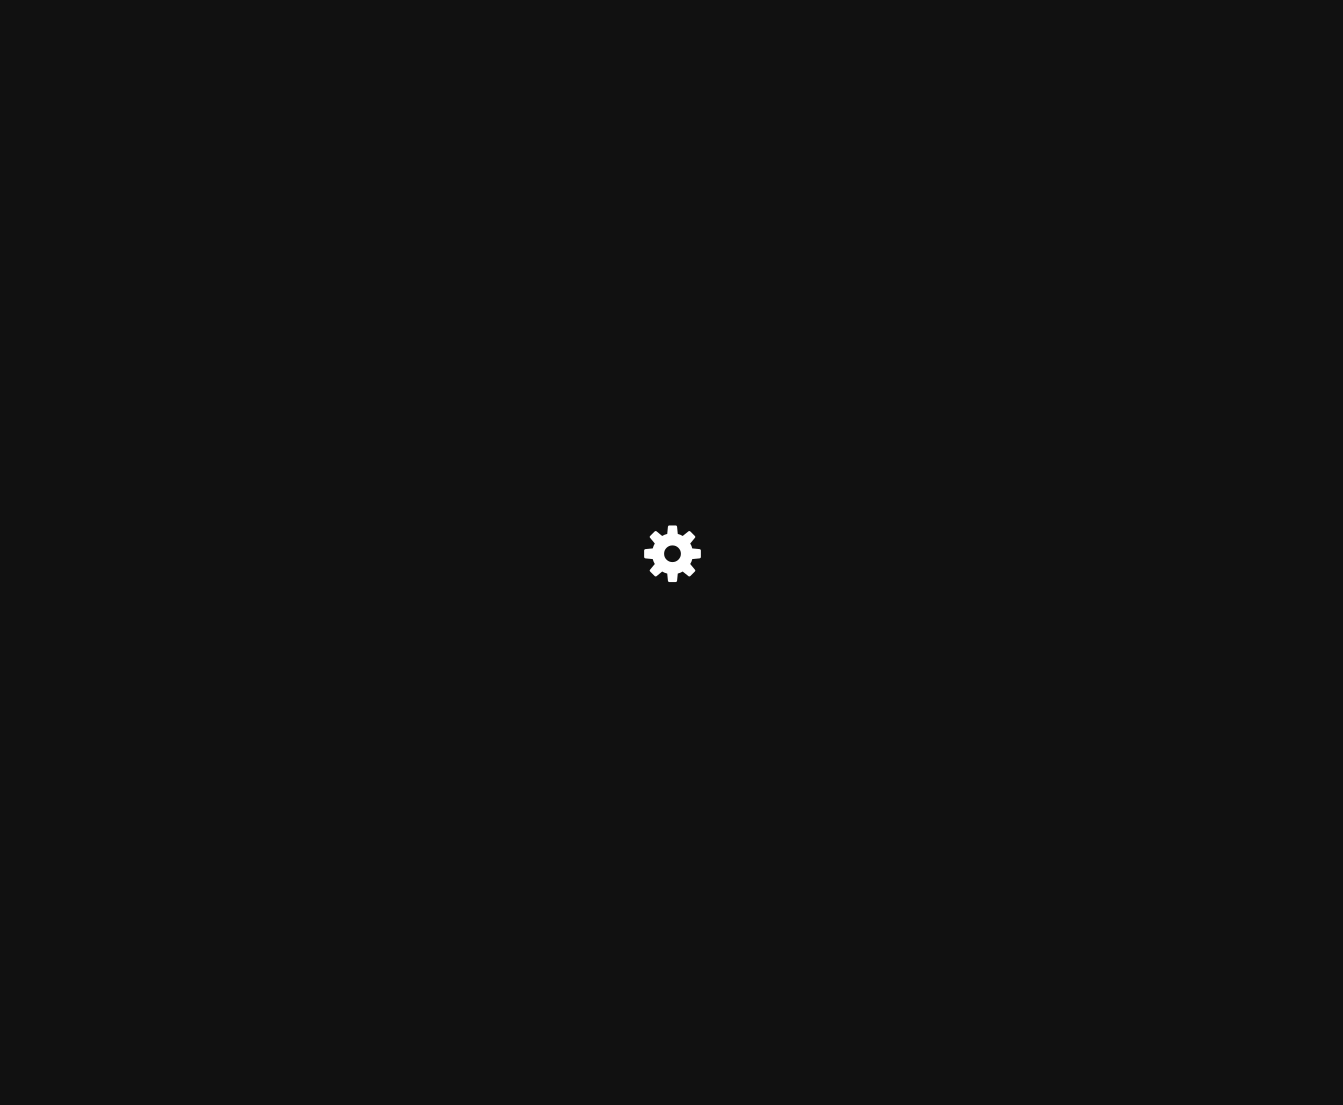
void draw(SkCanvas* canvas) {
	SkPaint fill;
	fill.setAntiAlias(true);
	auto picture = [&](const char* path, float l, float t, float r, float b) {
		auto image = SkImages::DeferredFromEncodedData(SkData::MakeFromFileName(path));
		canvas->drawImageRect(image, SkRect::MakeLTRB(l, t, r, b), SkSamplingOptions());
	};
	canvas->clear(0xFF111111);
	picture("image0.png", 644, 525, 701, 583);
}
